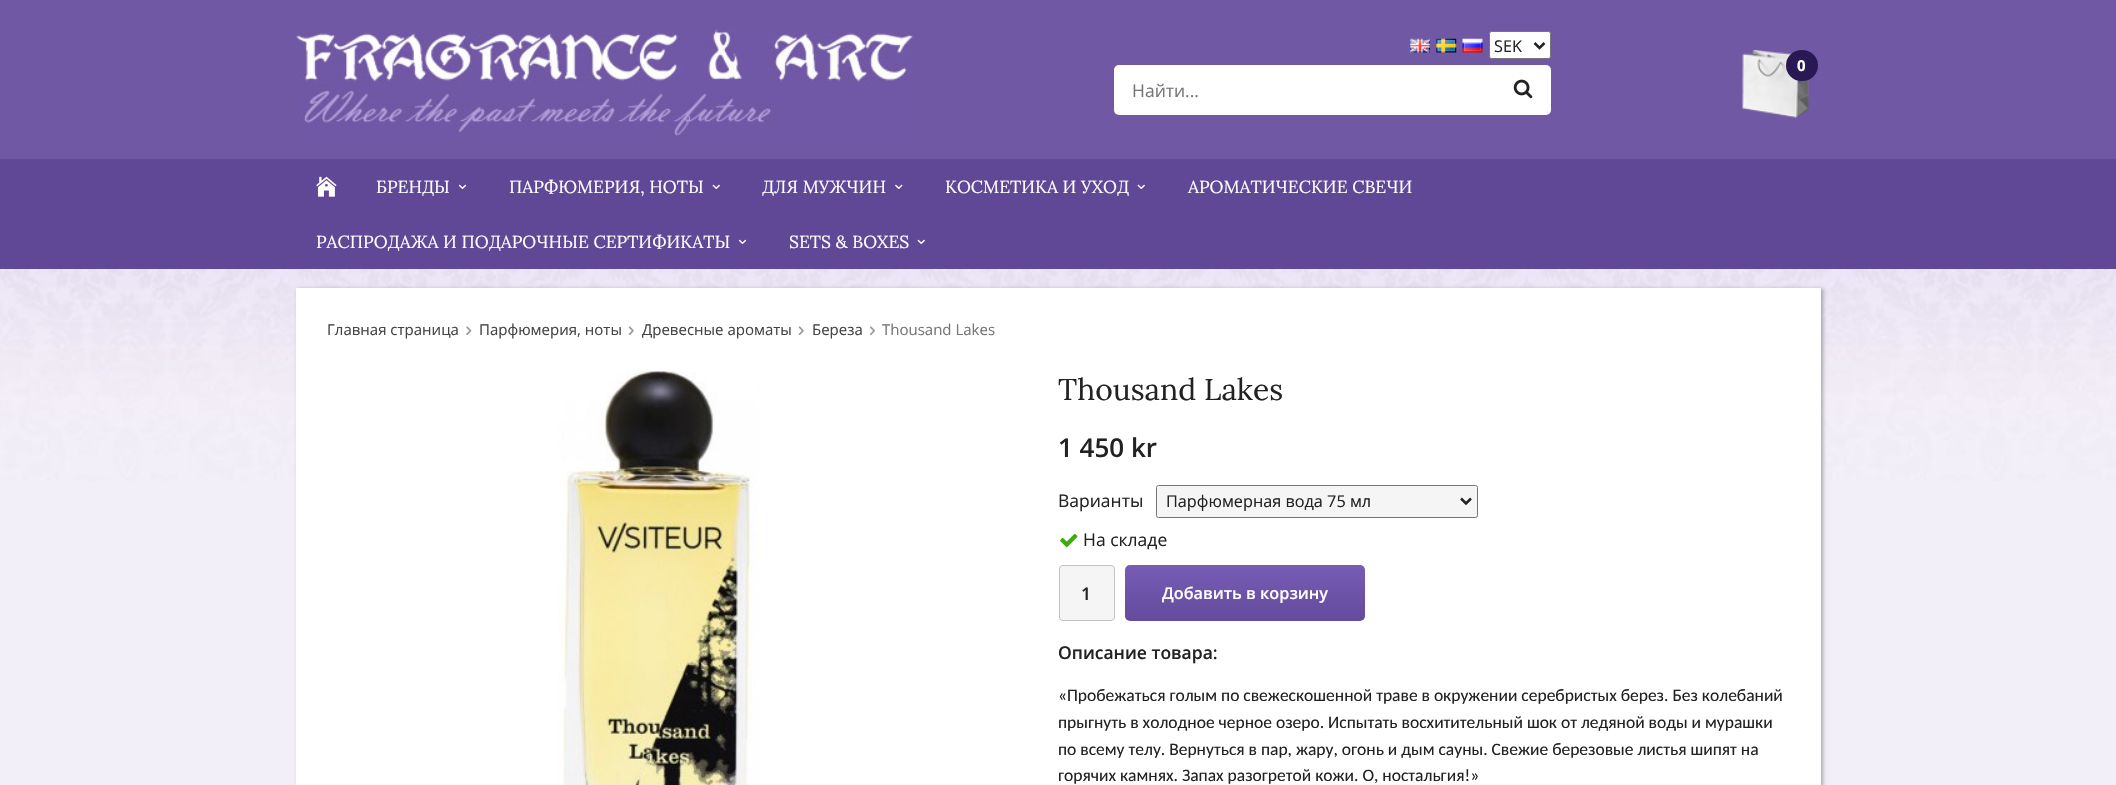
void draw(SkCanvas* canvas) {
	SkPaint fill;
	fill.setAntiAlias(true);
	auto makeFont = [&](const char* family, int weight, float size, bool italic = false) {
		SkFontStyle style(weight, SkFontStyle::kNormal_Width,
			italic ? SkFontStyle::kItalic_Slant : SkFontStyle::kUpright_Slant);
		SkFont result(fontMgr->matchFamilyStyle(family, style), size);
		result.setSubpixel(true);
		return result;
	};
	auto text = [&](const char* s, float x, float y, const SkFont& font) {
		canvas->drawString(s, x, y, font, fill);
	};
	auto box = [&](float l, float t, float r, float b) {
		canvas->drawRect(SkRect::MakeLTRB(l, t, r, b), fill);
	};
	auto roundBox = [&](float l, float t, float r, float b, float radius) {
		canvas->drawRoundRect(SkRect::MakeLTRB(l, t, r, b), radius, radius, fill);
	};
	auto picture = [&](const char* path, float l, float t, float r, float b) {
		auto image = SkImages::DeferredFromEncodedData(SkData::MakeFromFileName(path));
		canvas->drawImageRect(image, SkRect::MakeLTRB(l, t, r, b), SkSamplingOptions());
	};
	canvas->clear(0xFFF2EFF8);
	picture("image0.png", 0, 269, 2116, 481);
	fill.setColor(0xFF7158A5);
	box(0, 0, 2116, 159);
	picture("image1.png", 296, 28, 916, 140);
	picture("image2.png", 1410, 38, 1430, 53);
	picture("image3.png", 1436, 38, 1457, 53);
	picture("image4.png", 1462, 38, 1483, 53);
	fill.setColor(0xFFFFFFFF);
	canvas->drawRoundRect(SkRect::MakeLTRB(1489.5f, 31.5f, 1550.5f, 58.5f), 2, 2, fill);
	fill.setStyle(SkPaint::kStroke_Style);
	fill.setStrokeWidth(1);
	fill.setColor(0xFF767676);
	canvas->drawRoundRect(SkRect::MakeLTRB(1489.5f, 31.5f, 1550.5f, 58.5f), 2, 2, fill);
	fill.setStrokeWidth(2.5f);
	fill.setColor(0xFF222222);
	canvas->drawPath(SkPathBuilder().moveTo(1534.5f, 43).lineTo(1539.5f, 48).lineTo(1544.5f, 43).detach(), fill);
	fill.setStyle(SkPaint::kFill_Style);
	fill.setColor(0xFFFFFFFF);
	roundBox(1114, 65, 1551, 115, 5);
	picture("image5.png", 1513, 79, 1533, 99);
	picture("image6.png", 1742, 50, 1809, 118);
	fill.setColor(0xFF2A1854);
	roundBox(1786, 50, 1818, 81, 15.5f);
	fill.setColor(0xFF604896);
	box(0, 159, 2116, 269);
	picture("image7.png", 316, 176, 337, 197);
	picture("image8.png", 458, 184, 467, 189);
	picture("image9.png", 712, 184, 720, 189);
	picture("image10.png", 895, 184, 903, 189);
	picture("image9.png", 1137, 184, 1145, 189);
	picture("image8.png", 738, 239, 747, 244);
	picture("image9.png", 917, 239, 925, 244);
	fill.setColor(0x4D000000);
	fill.setMaskFilter(SkMaskFilter::MakeBlur(kNormal_SkBlurStyle, 2));
	canvas->drawRect(SkRect::MakeLTRB(298, 289, 1823, 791), fill);
	fill.setMaskFilter(nullptr);
	fill.setColor(0xFFFFFFFF);
	box(296, 288, 1821, 785);
	picture("image11.png", 466, 326, 472, 335);
	picture("image12.png", 628, 326, 634, 335);
	picture("image12.png", 798, 326, 804, 335);
	picture("image13.png", 870, 326, 875, 335);
	picture("image14.png", 558, 371, 761, 785);
	fill.setColor(0xFFF5F5F5);
	canvas->drawRoundRect(SkRect::MakeLTRB(1156.5f, 485.5f, 1477.5f, 517.5f), 2, 2, fill);
	fill.setStyle(SkPaint::kStroke_Style);
	fill.setStrokeWidth(1);
	fill.setColor(0xFF767676);
	canvas->drawRoundRect(SkRect::MakeLTRB(1156.5f, 485.5f, 1477.5f, 517.5f), 2, 2, fill);
	fill.setStrokeWidth(2.5f);
	fill.setColor(0xFF222222);
	canvas->drawPath(SkPathBuilder().moveTo(1461, 498.5f).lineTo(1466, 503.5f).lineTo(1471, 498.5f).detach(), fill);
	picture("image15.png", 1060, 533, 1078, 548);
	fill.setStyle(SkPaint::kFill_Style);
	fill.setColor(0xFFF5F5F5);
	canvas->drawRoundRect(SkRect::MakeLTRB(1059.5f, 565.5f, 1114.5f, 620.5f), 3.5f, 3.5f, fill);
	fill.setStyle(SkPaint::kStroke_Style);
	fill.setStrokeWidth(1);
	fill.setColor(0xFFC2C2C2);
	canvas->drawRoundRect(SkRect::MakeLTRB(1059.5f, 565.5f, 1114.5f, 620.5f), 3.5f, 3.5f, fill);
	fill.setStyle(SkPaint::kFill_Style);
	{
		const SkColor colors[] = {0xFF775CB5, 0xFF644B9C};
		const float stops[] = {0, 1};
		const SkPoint ends[] = {{1245, 565}, {1245, 621}};
		fill.setShader(SkGradientShader::MakeLinear(ends, colors, stops, 2, SkTileMode::kClamp));
		fill.setAlpha(255);
	}
	roundBox(1125, 565, 1365, 621, 5);
	auto font1 = makeFont("Open Sans", 400, 16.25f);
	fill.setShader(nullptr);
	fill.setColor(0xFF222222);
	text("SEK", 1494, 52, font1);
	auto font2 = makeFont("Open Sans", 400, 17.5f);
	fill.setColor(0xFF757575);
	text("Найти...", 1132, 97, font2);
	auto font3 = makeFont("Open Sans", 700, 15);
	fill.setColor(0xFFFFFFFF);
	text("0", 1797, 71, font3);
	auto font4 = makeFont("Lora", 400, 17.5f);
	text("БРЕНДЫ", 376, 193, font4);
	text("ПАРФЮМЕРИЯ, НОТЫ", 509, 193, font4);
	text("ДЛЯ МУЖЧИН", 762, 193, font4);
	text("КОСМЕТИКА И УХОД", 945, 193, font4);
	text("АРОМАТИЧЕСКИЕ СВЕЧИ", 1188, 193, font4);
	text("РАСПРОДАЖА И ПОДАРОЧНЫЕ СЕРТИФИКАТЫ", 316, 248, font4);
	text("SETS & BOXES", 789, 248, font4);
	auto font5 = makeFont("Open Sans", 400, 15);
	fill.setColor(0xFF444444);
	text("Главная страница", 327, 335, font5);
	text("Парфюмерия, ноты", 479, 335, font5);
	text("Древесные ароматы", 642, 335, font5);
	text("Береза", 812, 335, font5);
	fill.setColor(0xFF757575);
	text("Thousand Lakes", 882, 335, font5);
	auto font6 = makeFont("Lora", 400, 30);
	fill.setColor(0xFF222222);
	text("Thousand Lakes", 1058, 400, font6);
	auto font7 = makeFont("Open Sans", 600, 26);
	text("1 450 kr", 1058, 457, font7);
	text("Варианты", 1058, 507, font2);
	text("Парфюмерная вода 75 мл", 1166, 507, font1);
	text("На складе", 1083, 546, font2);
	auto font8 = makeFont("Open Sans", 600, 17.5f);
	text("1", 1081, 600, font8);
	auto font9 = makeFont("Open Sans", 600, 16.25f);
	fill.setColor(0xFFFFFFFF);
	text("Добавить в корзину", 1162, 599, font9);
	fill.setColor(0xFF222222);
	text("Описание товара:", 1058, 659, font8);
	auto font10 = makeFont("Carlito", 400, 17.5f);
	text("«Пробежаться голым по свежескошенной траве в окружении серебристых берез. Без колебаний", 1058, 701, font10);
	text("прыгнуть в холодное черное озеро. Испытать восхитительный шок от ледяной воды и мурашки", 1058, 728, font10);
	text("по всему телу. Вернуться в пар, жару, огонь и дым сауны. Свежие березовые листья шипят на", 1058, 755, font10);
	text("горячих камнях. Запах разогретой кожи. О, ностальгия!»", 1058, 781, font10);
}
